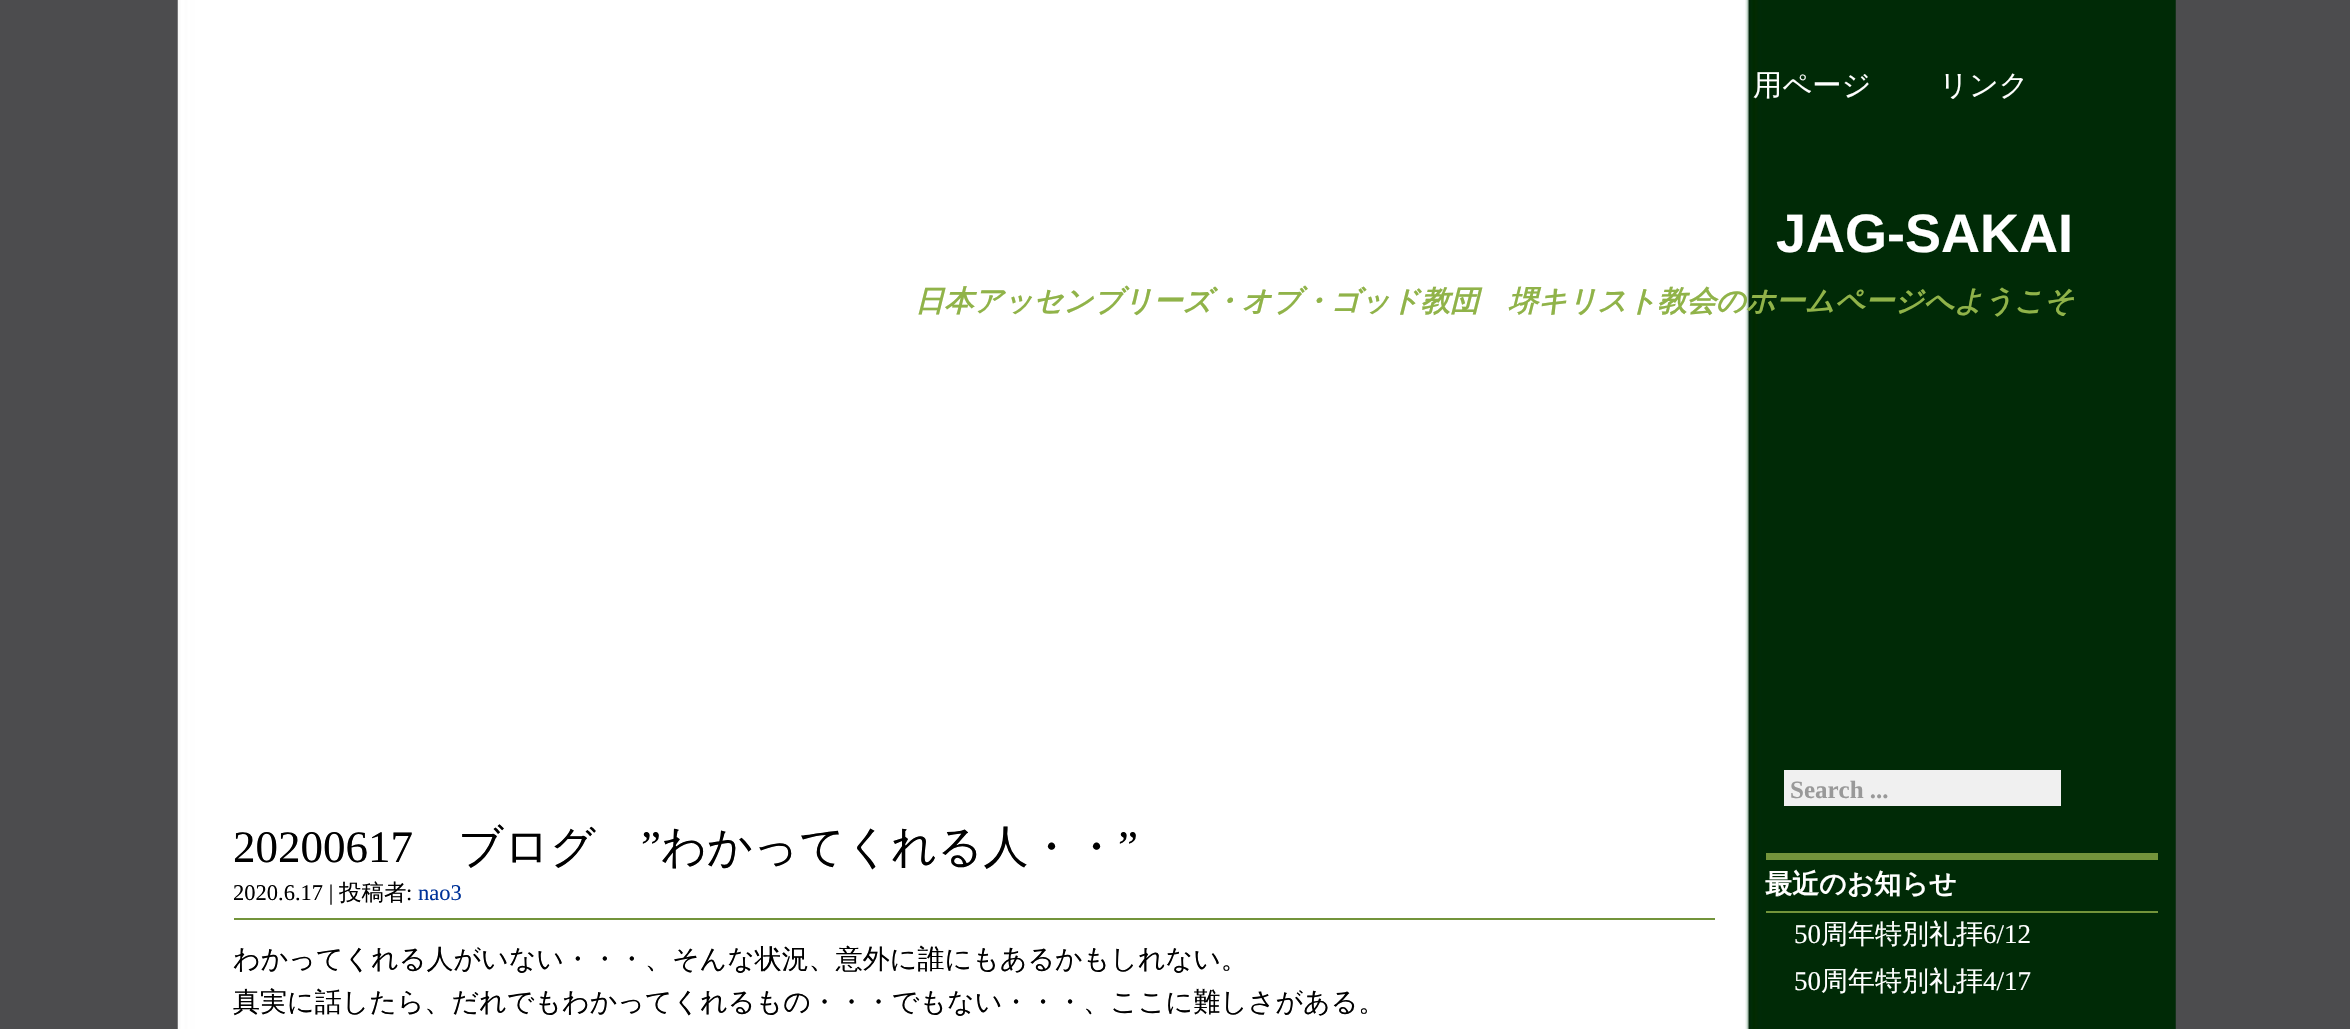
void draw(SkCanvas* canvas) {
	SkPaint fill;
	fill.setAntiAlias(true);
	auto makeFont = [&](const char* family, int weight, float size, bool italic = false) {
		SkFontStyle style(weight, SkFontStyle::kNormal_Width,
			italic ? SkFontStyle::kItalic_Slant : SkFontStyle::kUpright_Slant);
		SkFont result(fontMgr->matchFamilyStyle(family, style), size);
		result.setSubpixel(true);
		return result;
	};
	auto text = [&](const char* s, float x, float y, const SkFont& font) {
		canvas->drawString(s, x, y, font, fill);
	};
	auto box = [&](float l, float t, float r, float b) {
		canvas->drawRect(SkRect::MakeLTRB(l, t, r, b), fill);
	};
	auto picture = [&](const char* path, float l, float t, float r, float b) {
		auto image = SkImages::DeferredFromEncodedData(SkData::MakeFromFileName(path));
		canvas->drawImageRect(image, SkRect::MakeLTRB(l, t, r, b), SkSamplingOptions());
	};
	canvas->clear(0xFF4C4C4E);
	picture("image0.png", 177, 0, 2176, 1029);
	fill.setColor(0xFF73943B);
	box(234, 918, 1715, 920);
	fill.setColor(0xFFF0F0F0);
	box(1784, 770, 2061, 806);
	fill.setColor(0xFF73943B);
	box(1766, 853, 2158, 860);
	box(1766, 911, 2158, 913);
	auto font1 = makeFont("WenQuanYi Zen Hei", 500, 29.25f);
	fill.setColor(0xFFFFFFFF);
	text("用ページ", 1753, 95, font1);
	text("リンク", 1939, 95, font1);
	auto font2 = makeFont("Liberation Sans", 700, 54);
	text("JAG-SAKAI", 1776, 252, font2);
	auto font3 = makeFont("WenQuanYi Zen Hei", 700, 29.25f, true);
	fill.setColor(0xFF90B349);
	text("日本アッセンブリーズ・オブ・ゴッド教団　堺キリスト教会のホームページへようこそ", 915, 311, font3);
	auto font4 = makeFont("Liberation Serif", 400, 45);
	fill.setColor(0xFF000000);
	text("20200617", 233, 862, font4);
	auto font5 = makeFont("WenQuanYi Zen Hei", 500, 45);
	text("ブログ", 458, 862, font5);
	text("”", 641, 862, font4);
	text("わかってくれる人・・", 661, 862, font5);
	text("”", 1118, 862, font4);
	auto font6 = makeFont("Liberation Serif", 400, 22.5f);
	text("2020.6.17 |", 233, 900, font6);
	auto font7 = makeFont("WenQuanYi Zen Hei", 500, 22.5f);
	text("投稿者", 339, 900, font7);
	text(":", 406, 900, font6);
	fill.setColor(0xFF003399);
	text("nao3", 418, 900, font6);
	auto font8 = makeFont("WenQuanYi Zen Hei", 500, 27);
	fill.setColor(0xFF000000);
	text("わかってくれる人がいない・・・、そんな状況、意外に誰にもあるかもしれない。", 233, 968, font8);
	text("真実に話したら、だれでもわかってくれるもの・・・でもない・・・、ここに難しさがある。", 233, 1011, font8);
	auto font9 = makeFont("Liberation Serif", 700, 25);
	fill.setColor(0xFF999999);
	text("Search ...", 1790, 798, font9);
	auto font10 = makeFont("WenQuanYi Zen Hei", 700, 27);
	fill.setColor(0xFFFFFFFF);
	text("最近のお知らせ", 1765, 893, font10);
	auto font11 = makeFont("Liberation Serif", 400, 27);
	text("50", 1794, 943, font11);
	text("周年特別礼拝", 1821, 943, font8);
	text("6/12", 1983, 943, font11);
	text("50", 1794, 990, font11);
	text("周年特別礼拝", 1821, 990, font8);
	text("4/17", 1983, 990, font11);
}
